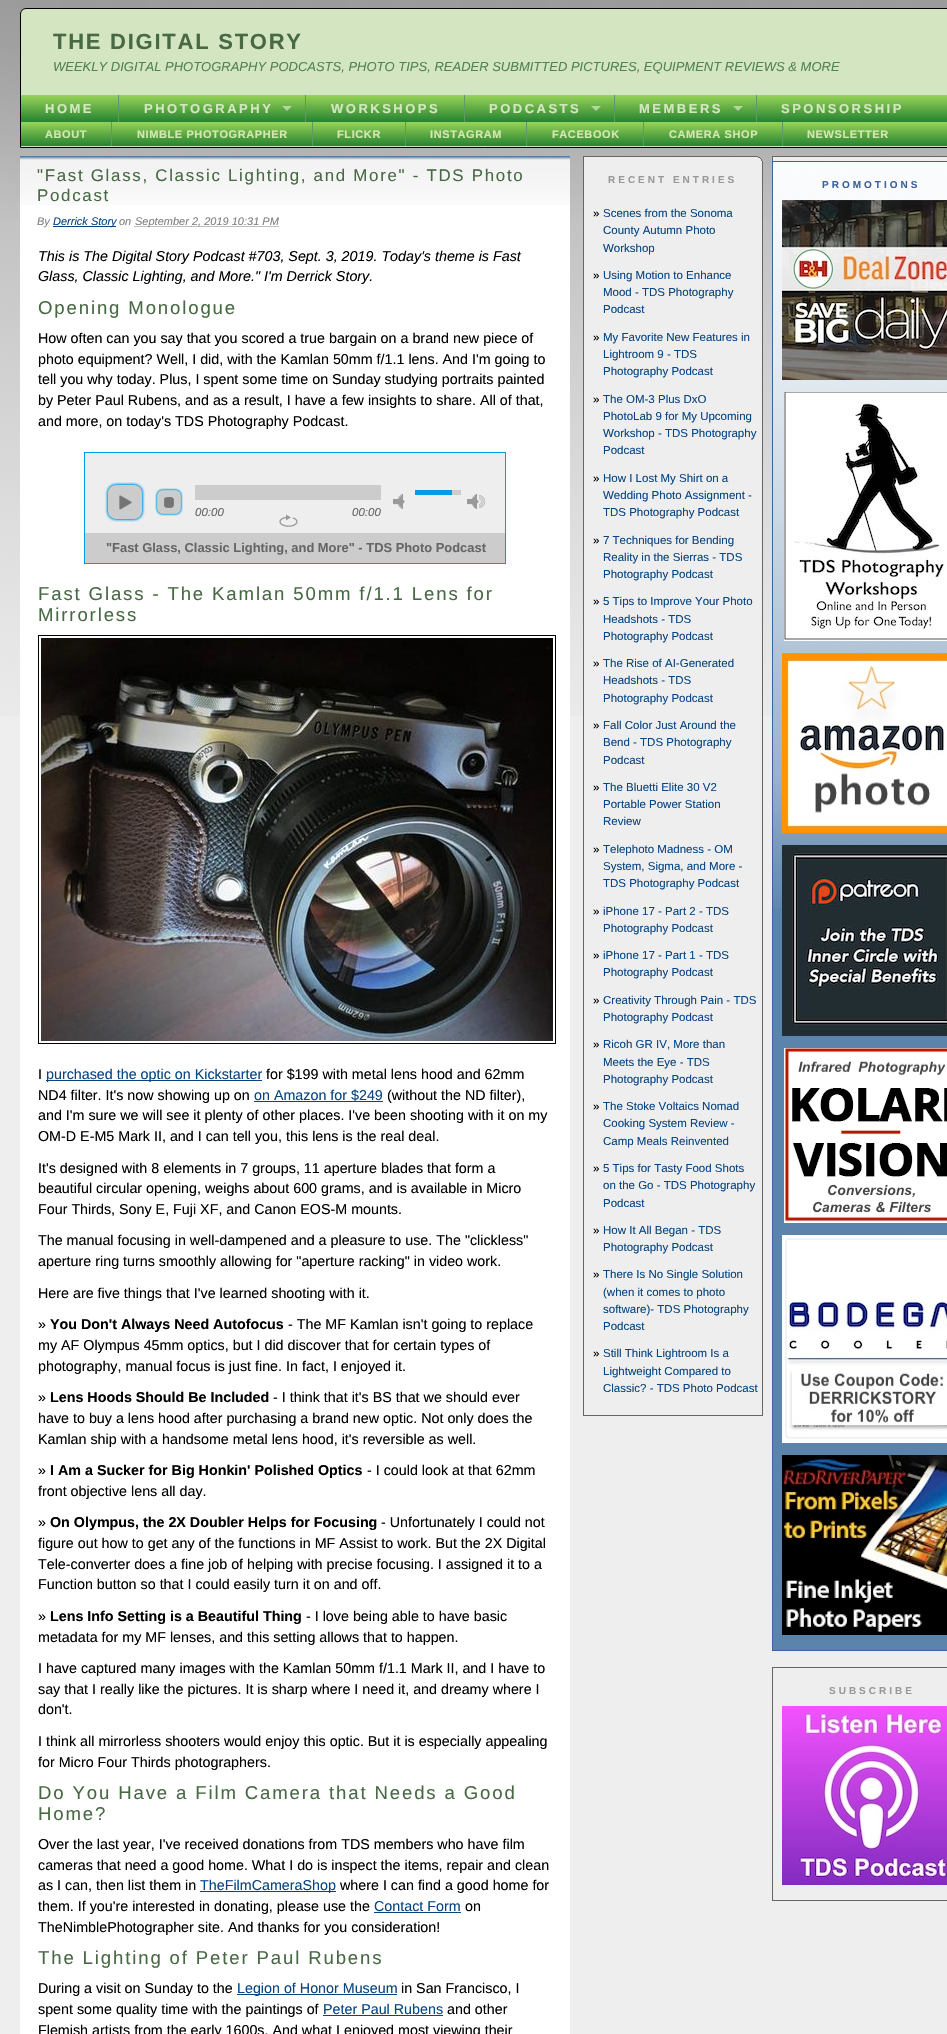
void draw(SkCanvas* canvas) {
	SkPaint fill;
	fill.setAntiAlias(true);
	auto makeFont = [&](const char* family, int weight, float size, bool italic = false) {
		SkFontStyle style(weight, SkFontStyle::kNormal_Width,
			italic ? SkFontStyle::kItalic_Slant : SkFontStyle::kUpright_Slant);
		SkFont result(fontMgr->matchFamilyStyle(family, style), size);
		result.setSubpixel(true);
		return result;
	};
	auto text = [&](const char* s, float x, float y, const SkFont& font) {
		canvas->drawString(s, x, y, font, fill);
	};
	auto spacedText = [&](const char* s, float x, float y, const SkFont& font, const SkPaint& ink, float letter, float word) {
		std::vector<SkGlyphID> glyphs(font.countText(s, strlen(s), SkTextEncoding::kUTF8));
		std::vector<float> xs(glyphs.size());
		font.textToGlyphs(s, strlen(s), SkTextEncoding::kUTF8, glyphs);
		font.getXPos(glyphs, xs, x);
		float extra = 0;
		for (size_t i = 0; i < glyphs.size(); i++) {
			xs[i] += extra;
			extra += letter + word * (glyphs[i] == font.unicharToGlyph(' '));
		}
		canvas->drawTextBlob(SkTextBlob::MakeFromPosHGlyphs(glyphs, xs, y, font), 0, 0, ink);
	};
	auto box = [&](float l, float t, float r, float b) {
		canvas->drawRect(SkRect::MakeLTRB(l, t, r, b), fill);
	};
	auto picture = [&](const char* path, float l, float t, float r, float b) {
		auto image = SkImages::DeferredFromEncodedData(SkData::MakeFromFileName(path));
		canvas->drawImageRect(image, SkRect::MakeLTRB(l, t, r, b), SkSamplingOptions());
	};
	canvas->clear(0xFFEEEEEE);
	picture("image0.png", 0, 0, 947, 716);
	fill.setColor(0xFFD4E6C1);
	canvas->drawPath(SkPathBuilder().moveTo(26, 8.5f).lineTo(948, 8.5f).cubicTo(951, 8.5f, 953.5f, 11, 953.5f, 14).lineTo(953.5f, 147.5f).lineTo(20.5f, 147.5f).lineTo(20.5f, 14).cubicTo(20.5f, 11, 23, 8.5f, 26, 8.5f).close().detach(), fill);
	fill.setStyle(SkPaint::kStroke_Style);
	fill.setStrokeWidth(1);
	fill.setColor(0xFF000000);
	canvas->drawPath(SkPathBuilder().moveTo(26, 8.5f).lineTo(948, 8.5f).cubicTo(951, 8.5f, 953.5f, 11, 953.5f, 14).lineTo(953.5f, 147.5f).lineTo(20.5f, 147.5f).lineTo(20.5f, 14).cubicTo(20.5f, 11, 23, 8.5f, 26, 8.5f).close().detach(), fill);
	fill.setStyle(SkPaint::kFill_Style);
	{
		const SkColor colors[] = {0xFF98D358, 0xFF258231, 0xFF89B149};
		const float stops[] = {0, 1, 1};
		const SkPoint ends[] = {{495, 95}, {495, 122}};
		fill.setShader(SkGradientShader::MakeLinear(ends, colors, stops, 3, SkTileMode::kClamp));
		fill.setAlpha(255);
	}
	box(21, 95, 947, 122);
	fill.setShader(nullptr);
	fill.setColor(0xFF609868);
	box(118, 95, 119, 122);
	box(305, 95, 306, 122);
	fill.setColor(0x80FFFFFF);
	canvas->drawPath(SkPathBuilder().moveTo(282, 106).lineTo(292, 106).lineTo(287, 111).close().detach(), fill);
	fill.setColor(0xFF609868);
	box(464, 95, 465, 122);
	box(614, 95, 615, 122);
	fill.setColor(0x80FFFFFF);
	canvas->drawPath(SkPathBuilder().moveTo(591, 106).lineTo(601, 106).lineTo(596, 111).close().detach(), fill);
	fill.setColor(0xFF609868);
	box(756, 95, 757, 122);
	fill.setColor(0x80FFFFFF);
	canvas->drawPath(SkPathBuilder().moveTo(733, 106).lineTo(743, 106).lineTo(738, 111).close().detach(), fill);
	{
		const SkColor colors[] = {0xFF98D358, 0xFF258231, 0xFF89B149};
		const float stops[] = {0, 1, 1};
		const SkPoint ends[] = {{495, 122}, {495, 146}};
		fill.setShader(SkGradientShader::MakeLinear(ends, colors, stops, 3, SkTileMode::kClamp));
		fill.setAlpha(255);
	}
	box(21, 122, 947, 146);
	fill.setShader(nullptr);
	fill.setColor(0xFF609868);
	box(111, 122, 112, 146);
	box(312, 122, 313, 146);
	box(405, 122, 406, 146);
	box(526, 122, 527, 146);
	box(643, 122, 644, 146);
	box(782, 122, 783, 146);
	fill.setColor(0xFFFFFFFF);
	box(20, 205, 570, 2034);
	picture("image1.png", 20, 156, 570, 205);
	fill.setColor(0xFF084582);
	box(53, 226, 116, 227);
	fill.setStyle(SkPaint::kStroke_Style);
	fill.setColor(0xFF808080);
	fill.setPathEffect(SkDashPathEffect::Make({{1, 1}}, 0));
	canvas->drawPath(SkPathBuilder().moveTo(134.5f, 226.5f).lineTo(191.5f, 226.5f).detach(), fill);
	fill.setPathEffect(nullptr);
	fill.setPathEffect(SkDashPathEffect::Make({{1, 1}}, 0));
	canvas->drawPath(SkPathBuilder().moveTo(191.5f, 226.5f).lineTo(278.5f, 226.5f).detach(), fill);
	fill.setPathEffect(nullptr);
	fill.setStyle(SkPaint::kFill_Style);
	fill.setColor(0xFFEEEEEE);
	box(85, 453, 505, 533);
	fill.setStyle(SkPaint::kStroke_Style);
	fill.setColor(0xFF009BE3);
	canvas->drawRect(SkRect::MakeLTRB(84.5f, 452.5f, 505.5f, 563.5f), fill);
	picture("image2.png", 105, 482, 145, 522);
	picture("image3.png", 155, 488, 183, 516);
	picture("image4.png", 393, 494, 411, 509);
	picture("image5.png", 467, 494, 485, 509);
	picture("image6.png", 195, 485, 381, 500);
	fill.setStyle(SkPaint::kFill_Style);
	fill.setColor(0xFFCCCCCC);
	box(452, 490, 461, 495);
	picture("image7.png", 415, 490, 452, 495);
	picture("image8.png", 277, 514, 299, 527);
	box(85, 533, 505, 563);
	fill.setStyle(SkPaint::kStroke_Style);
	fill.setColor(0xFF000000);
	canvas->drawRect(SkRect::MakeLTRB(38.5f, 635.5f, 555.5f, 1043.5f), fill);
	picture("image9.png", 41, 638, 553, 1041);
	fill.setStyle(SkPaint::kFill_Style);
	fill.setColor(0xFF084582);
	box(46, 1080, 262, 1081);
	box(254, 1101, 383, 1102);
	box(200, 1891, 336, 1892);
	box(374, 1912, 461, 1913);
	box(237, 1994, 397, 1995);
	box(323, 2015, 443, 2016);
	fill.setColor(0xFF666666);
	box(583, 156, 758, 157);
	fill.setColor(0xFFEEEEEE);
	box(584, 157, 758, 158);
	fill.setColor(0xFF666666);
	box(758, 157, 760, 158);
	box(583, 157, 584, 161);
	fill.setColor(0xFFEEEEEE);
	box(584, 158, 760, 159);
	fill.setColor(0xFF666666);
	box(760, 158, 761, 159);
	fill.setColor(0xFFEEEEEE);
	box(584, 159, 761, 161);
	fill.setColor(0xFF666666);
	box(761, 159, 762, 161);
	fill.setColor(0xFFEEEEEE);
	box(584, 161, 762, 716);
	fill.setColor(0xFF666666);
	box(762, 161, 763, 1416);
	box(583, 1415, 763, 1416);
	box(583, 161, 584, 1416);
	box(772, 156, 947, 157);
	fill.setColor(0xFFEEEEEE);
	box(773, 157, 947, 161);
	fill.setColor(0xFF666666);
	box(772, 157, 773, 161);
	fill.setColor(0xFF3D629B);
	box(772, 161, 947, 162);
	fill.setColor(0xFFFBFCFD);
	box(773, 162, 947, 166);
	fill.setColor(0xFF3D629B);
	box(772, 162, 773, 166);
	fill.setColor(0xFF5B84AD);
	box(773, 908, 947, 1650);
	picture("image10.png", 773, 166, 947, 908);
	fill.setColor(0xFF3D629B);
	box(772, 1650, 947, 1651);
	box(772, 166, 773, 1651);
	picture("image11.png", 782, 200, 947, 380);
	picture("image12.png", 784, 392, 947, 641);
	picture("image13.png", 782, 653, 947, 833);
	picture("image14.png", 782, 845, 947, 1036);
	picture("image15.png", 784, 1048, 947, 1223);
	picture("image16.png", 782, 1235, 947, 1443);
	picture("image17.png", 782, 1455, 947, 1635);
	fill.setColor(0xFF666666);
	box(772, 1667, 947, 1668);
	box(772, 1668, 773, 1672);
	box(772, 1900, 947, 1901);
	box(772, 1672, 773, 1901);
	picture("image18.png", 782, 1706, 947, 1885);
	auto font1 = makeFont("Liberation Sans", 700, 22);
	fill.setColor(0xFF476943);
	spacedText("THE DIGITAL STORY", 53, 49, font1, fill, 1.75f, 0);
	auto font2 = makeFont("Liberation Sans", 400, 13, true);
	fill.setColor(0xFF508356);
	text("WEEKLY DIGITAL PHOTOGRAPHY PODCASTS, PHOTO TIPS, READER SUBMITTED PICTURES, EQUIPMENT REVIEWS & MORE", 53, 71, font2);
	auto font3 = makeFont("Liberation Sans", 700, 13);
	fill.setColor(0xFFD4E6C1);
	spacedText("HOME", 45, 113, font3, fill, 2.5f, 0);
	spacedText("PHOTOGRAPHY", 144, 113, font3, fill, 2.5f, 0);
	spacedText("WORKSHOPS", 331, 113, font3, fill, 2.5f, 0);
	spacedText("PODCASTS", 489, 113, font3, fill, 2.5f, 0);
	spacedText("MEMBERS", 639, 113, font3, fill, 2.5f, 0);
	spacedText("SPONSORSHIP", 781, 113, font3, fill, 2.5f, 0);
	auto font4 = makeFont("Liberation Sans", 700, 11);
	fill.setColor(0xFFD3E7B3);
	spacedText("ABOUT", 45, 138, font4, fill, 0.6f, 0);
	spacedText("NIMBLE PHOTOGRAPHER", 137, 138, font4, fill, 0.6f, 0);
	spacedText("FLICKR", 337, 138, font4, fill, 0.6f, 0);
	spacedText("INSTAGRAM", 430, 138, font4, fill, 0.6f, 0);
	spacedText("FACEBOOK", 552, 138, font4, fill, 0.6f, 0);
	spacedText("CAMERA SHOP", 669, 138, font4, fill, 0.6f, 0);
	spacedText("NEWSLETTER", 807, 138, font4, fill, 0.6f, 0);
	auto font5 = makeFont("Liberation Sans", 400, 16.9f);
	fill.setColor(0xFF476943);
	spacedText("\"Fast Glass, Classic Lighting, and More\" - TDS Photo", 37, 181, font5, fill, 1.7f, 0);
	spacedText("Podcast", 37, 201, font5, fill, 1.7f, 0);
	auto font6 = makeFont("Liberation Sans", 400, 11, true);
	fill.setColor(0xFF808080);
	text("By", 37, 225, font6);
	fill.setColor(0xFF084582);
	text("Derrick Story", 53, 225, font6);
	fill.setColor(0xFF808080);
	text("on", 119, 225, font6);
	text("September", 135, 225, font6);
	text("2, 2019 10:31 PM", 192, 225, font6);
	auto font7 = makeFont("Liberation Sans", 400, 14.3f, true);
	fill.setColor(0xFF000000);
	text("This is The Digital Story Podcast #703, Sept. 3, 2019. Today's theme is Fast", 38, 261, font7);
	text("Glass, Classic Lighting, and More.\" I'm Derrick Story.", 38, 281, font7);
	auto font8 = makeFont("Liberation Sans", 400, 18.6f);
	fill.setColor(0xFF476943);
	spacedText("Opening Monologue", 38, 314, font8, fill, 1.85f, 0);
	auto font9 = makeFont("Liberation Sans", 400, 14.3f);
	fill.setColor(0xFF000000);
	text("How often can you say that you scored a true bargain on a brand new piece of", 38, 343, font9);
	text("photo equipment? Well, I did, with the Kamlan 50mm f/1.1 lens. And I'm going to", 38, 364, font9);
	text("tell you why today. Plus, I spent some time on Sunday studying portraits painted", 38, 384, font9);
	text("by Peter Paul Rubens, and as a result, I have a few insights to share. All of that,", 38, 405, font9);
	text("and more, on today's TDS Photography Podcast.", 38, 426, font9);
	auto font10 = makeFont("Liberation Sans", 400, 11.5f, true);
	fill.setColor(0xFF666666);
	text("00:00", 195, 516, font10);
	text("00:00", 352, 516, font10);
	auto font11 = makeFont("Liberation Sans", 700, 12.9f);
	text("\"Fast Glass, Classic Lighting, and More\" - TDS Photo Podcast", 106, 552, font11);
	fill.setColor(0xFF476943);
	spacedText("Fast Glass - The Kamlan 50mm f/1.1 Lens for", 38, 600, font8, fill, 1.85f, 0);
	spacedText("Mirrorless", 38, 621, font8, fill, 1.85f, 0);
	fill.setColor(0xFF000000);
	text("I", 38, 1079, font9);
	fill.setColor(0xFF084582);
	text("purchased the optic on Kickstarter", 46, 1079, font9);
	fill.setColor(0xFF000000);
	text("for $199 with metal lens hood and 62mm", 266, 1079, font9);
	text("ND4 filter. It's now showing up on", 38, 1100, font9);
	fill.setColor(0xFF084582);
	text("on Amazon for $249", 254, 1100, font9);
	fill.setColor(0xFF000000);
	text("(without the ND filter),", 387, 1100, font9);
	text("and I'm sure we will see it plenty of other places. I've been shooting with it on my", 38, 1120, font9);
	text("OM-D E-M5 Mark II, and I can tell you, this lens is the real deal.", 38, 1141, font9);
	text("It's designed with 8 elements in 7 groups, 11 aperture blades that form a", 38, 1173, font9);
	text("beautiful circular opening, weighs about 600 grams, and is available in Micro", 38, 1193, font9);
	text("Four Thirds, Sony E, Fuji XF, and Canon EOS-M mounts.", 38, 1214, font9);
	text("The manual focusing in well-dampened and a pleasure to use. The \"clickless\"", 38, 1245, font9);
	text("aperture ring turns smoothly allowing for \"aperture racking\" in video work.", 38, 1266, font9);
	text("Here are five things that I've learned shooting with it.", 38, 1298, font9);
	text("»", 38, 1329, font9);
	auto font12 = makeFont("Liberation Sans", 700, 14.3f);
	text("You Don't Always Need Autofocus", 50, 1329, font12);
	text("- The MF Kamlan isn't going to replace", 288, 1329, font9);
	text("my AF Olympus 45mm optics, but I did discover that for certain types of", 38, 1350, font9);
	text("photography, manual focus is just fine. In fact, I enjoyed it.", 38, 1371, font9);
	text("»", 38, 1402, font9);
	text("Lens Hoods Should Be Included", 50, 1402, font12);
	text("- I think that it's BS that we should ever", 273, 1402, font9);
	text("have to buy a lens hood after purchasing a brand new optic. Not only does the", 38, 1423, font9);
	text("Kamlan ship with a handsome metal lens hood, it's reversible as well.", 38, 1444, font9);
	text("»", 38, 1475, font9);
	text("I Am a Sucker for Big Honkin' Polished Optics", 50, 1475, font12);
	text("- I could look at that 62mm", 367, 1475, font9);
	text("front objective lens all day.", 38, 1496, font9);
	text("»", 38, 1527, font9);
	text("On Olympus, the 2X Doubler Helps for Focusing", 50, 1527, font12);
	text("- Unfortunately I could not", 381, 1527, font9);
	text("figure out how to get any of the functions in MF Assist to work. But the 2X Digital", 38, 1548, font9);
	text("Tele-converter does a fine job of helping with precise focusing. I assigned it to a", 38, 1569, font9);
	text("Function button so that I could easily turn it on and off.", 38, 1589, font9);
	text("»", 38, 1621, font9);
	text("Lens Info Setting is a Beautiful Thing", 50, 1621, font12);
	text("- I love being able to have basic", 306, 1621, font9);
	text("metadata for my MF lenses, and this setting allows that to happen.", 38, 1642, font9);
	text("I have captured many images with the Kamlan 50mm f/1.1 Mark II, and I have to", 38, 1673, font9);
	text("say that I really like the pictures. It is sharp where I need it, and dreamy where I", 38, 1694, font9);
	text("don't.", 38, 1714, font9);
	text("I think all mirrorless shooters would enjoy this optic. But it is especially appealing", 38, 1746, font9);
	text("for Micro Four Thirds photographers.", 38, 1767, font9);
	fill.setColor(0xFF476943);
	spacedText("Do You Have a Film Camera that Needs a Good", 38, 1799, font8, fill, 1.85f, 0);
	spacedText("Home?", 38, 1820, font8, fill, 1.85f, 0);
	fill.setColor(0xFF000000);
	text("Over the last year, I've received donations from TDS members who have film", 38, 1849, font9);
	text("cameras that need a good home. What I do is inspect the items, repair and clean", 38, 1870, font9);
	text("as I can, then list them in", 38, 1890, font9);
	fill.setColor(0xFF084582);
	text("TheFilmCameraShop", 200, 1890, font9);
	fill.setColor(0xFF000000);
	text("where I can find a good home for", 340, 1890, font9);
	text("them. If you're interested in donating, please use the", 38, 1911, font9);
	fill.setColor(0xFF084582);
	text("Contact Form", 374, 1911, font9);
	fill.setColor(0xFF000000);
	text("on", 465, 1911, font9);
	text("TheNimblePhotographer site. And thanks for you consideration!", 38, 1932, font9);
	fill.setColor(0xFF476943);
	spacedText("The Lighting of Peter Paul Rubens", 38, 1964, font8, fill, 1.85f, 0);
	fill.setColor(0xFF000000);
	text("During a visit on Sunday to the", 38, 1993, font9);
	fill.setColor(0xFF084582);
	text("Legion of Honor Museum", 237, 1993, font9);
	fill.setColor(0xFF000000);
	text("in San Francisco, I", 401, 1993, font9);
	text("spent some quality time with the paintings of", 38, 2014, font9);
	fill.setColor(0xFF084582);
	text("Peter Paul Rubens", 323, 2014, font9);
	fill.setColor(0xFF000000);
	text("and other", 447, 2014, font9);
	text("Flemish artists from the early 1600s. And what I enjoyed most viewing their", 38, 2035, font9);
	auto font13 = makeFont("Liberation Sans", 700, 10);
	fill.setColor(0xFF999999);
	spacedText("RECENT ENTRIES", 608, 183, font13, fill, 3, 0);
	auto font14 = makeFont("Liberation Sans", 400, 11.5f);
	fill.setColor(0xFF000000);
	text("»", 593, 217, font14);
	fill.setColor(0xFF084582);
	text("Scenes from the Sonoma", 603, 217, font14);
	text("County Autumn Photo", 603, 234, font14);
	text("Workshop", 603, 252, font14);
	fill.setColor(0xFF000000);
	text("»", 593, 279, font14);
	fill.setColor(0xFF084582);
	text("Using Motion to Enhance", 603, 279, font14);
	text("Mood - TDS Photography", 603, 296, font14);
	text("Podcast", 603, 313, font14);
	fill.setColor(0xFF000000);
	text("»", 593, 341, font14);
	fill.setColor(0xFF084582);
	text("My Favorite New Features in", 603, 341, font14);
	text("Lightroom 9 - TDS", 603, 358, font14);
	text("Photography Podcast", 603, 375, font14);
	fill.setColor(0xFF000000);
	text("»", 593, 403, font14);
	fill.setColor(0xFF084582);
	text("The OM-3 Plus DxO", 603, 403, font14);
	text("PhotoLab 9 for My Upcoming", 603, 420, font14);
	text("Workshop - TDS Photography", 603, 437, font14);
	text("Podcast", 603, 454, font14);
	fill.setColor(0xFF000000);
	text("»", 593, 482, font14);
	fill.setColor(0xFF084582);
	text("How I Lost My Shirt on a", 603, 482, font14);
	text("Wedding Photo Assignment -", 603, 499, font14);
	text("TDS Photography Podcast", 603, 516, font14);
	fill.setColor(0xFF000000);
	text("»", 593, 544, font14);
	fill.setColor(0xFF084582);
	text("7 Techniques for Bending", 603, 544, font14);
	text("Reality in the Sierras - TDS", 603, 561, font14);
	text("Photography Podcast", 603, 578, font14);
	fill.setColor(0xFF000000);
	text("»", 593, 605, font14);
	fill.setColor(0xFF084582);
	text("5 Tips to Improve Your Photo", 603, 605, font14);
	text("Headshots - TDS", 603, 623, font14);
	text("Photography Podcast", 603, 640, font14);
	fill.setColor(0xFF000000);
	text("»", 593, 667, font14);
	fill.setColor(0xFF084582);
	text("The Rise of AI-Generated", 603, 667, font14);
	text("Headshots - TDS", 603, 684, font14);
	text("Photography Podcast", 603, 702, font14);
	fill.setColor(0xFF000000);
	text("»", 593, 729, font14);
	fill.setColor(0xFF084582);
	text("Fall Color Just Around the", 603, 729, font14);
	text("Bend - TDS Photography", 603, 746, font14);
	text("Podcast", 603, 764, font14);
	fill.setColor(0xFF000000);
	text("»", 593, 791, font14);
	fill.setColor(0xFF084582);
	text("The Bluetti Elite 30 V2", 603, 791, font14);
	text("Portable Power Station", 603, 808, font14);
	text("Review", 603, 825, font14);
	fill.setColor(0xFF000000);
	text("»", 593, 853, font14);
	fill.setColor(0xFF084582);
	text("Telephoto Madness - OM", 603, 853, font14);
	text("System, Sigma, and More -", 603, 870, font14);
	text("TDS Photography Podcast", 603, 887, font14);
	fill.setColor(0xFF000000);
	text("»", 593, 915, font14);
	fill.setColor(0xFF084582);
	text("iPhone 17 - Part 2 - TDS", 603, 915, font14);
	text("Photography Podcast", 603, 932, font14);
	fill.setColor(0xFF000000);
	text("»", 593, 959, font14);
	fill.setColor(0xFF084582);
	text("iPhone 17 - Part 1 - TDS", 603, 959, font14);
	text("Photography Podcast", 603, 976, font14);
	fill.setColor(0xFF000000);
	text("»", 593, 1004, font14);
	fill.setColor(0xFF084582);
	text("Creativity Through Pain - TDS", 603, 1004, font14);
	text("Photography Podcast", 603, 1021, font14);
	fill.setColor(0xFF000000);
	text("»", 593, 1048, font14);
	fill.setColor(0xFF084582);
	text("Ricoh GR IV, More than", 603, 1048, font14);
	text("Meets the Eye - TDS", 603, 1066, font14);
	text("Photography Podcast", 603, 1083, font14);
	fill.setColor(0xFF000000);
	text("»", 593, 1110, font14);
	fill.setColor(0xFF084582);
	text("The Stoke Voltaics Nomad", 603, 1110, font14);
	text("Cooking System Review -", 603, 1127, font14);
	text("Camp Meals Reinvented", 603, 1145, font14);
	fill.setColor(0xFF000000);
	text("»", 593, 1172, font14);
	fill.setColor(0xFF084582);
	text("5 Tips for Tasty Food Shots", 603, 1172, font14);
	text("on the Go - TDS Photography", 603, 1189, font14);
	text("Podcast", 603, 1207, font14);
	fill.setColor(0xFF000000);
	text("»", 593, 1234, font14);
	fill.setColor(0xFF084582);
	text("How It All Began - TDS", 603, 1234, font14);
	text("Photography Podcast", 603, 1251, font14);
	fill.setColor(0xFF000000);
	text("»", 593, 1278, font14);
	fill.setColor(0xFF084582);
	text("There Is No Single Solution", 603, 1278, font14);
	text("(when it comes to photo", 603, 1296, font14);
	text("software)- TDS Photography", 603, 1313, font14);
	text("Podcast", 603, 1330, font14);
	fill.setColor(0xFF000000);
	text("»", 593, 1357, font14);
	fill.setColor(0xFF084582);
	text("Still Think Lightroom Is a", 603, 1357, font14);
	text("Lightweight Compared to", 603, 1375, font14);
	text("Classic? - TDS Photo Podcast", 603, 1392, font14);
	fill.setColor(0xFF3D629B);
	spacedText("PROMOTIONS", 822, 188, font13, fill, 3, 0);
	fill.setColor(0xFF999999);
	spacedText("SUBSCRIBE", 829, 1694, font13, fill, 3, 0);
}
